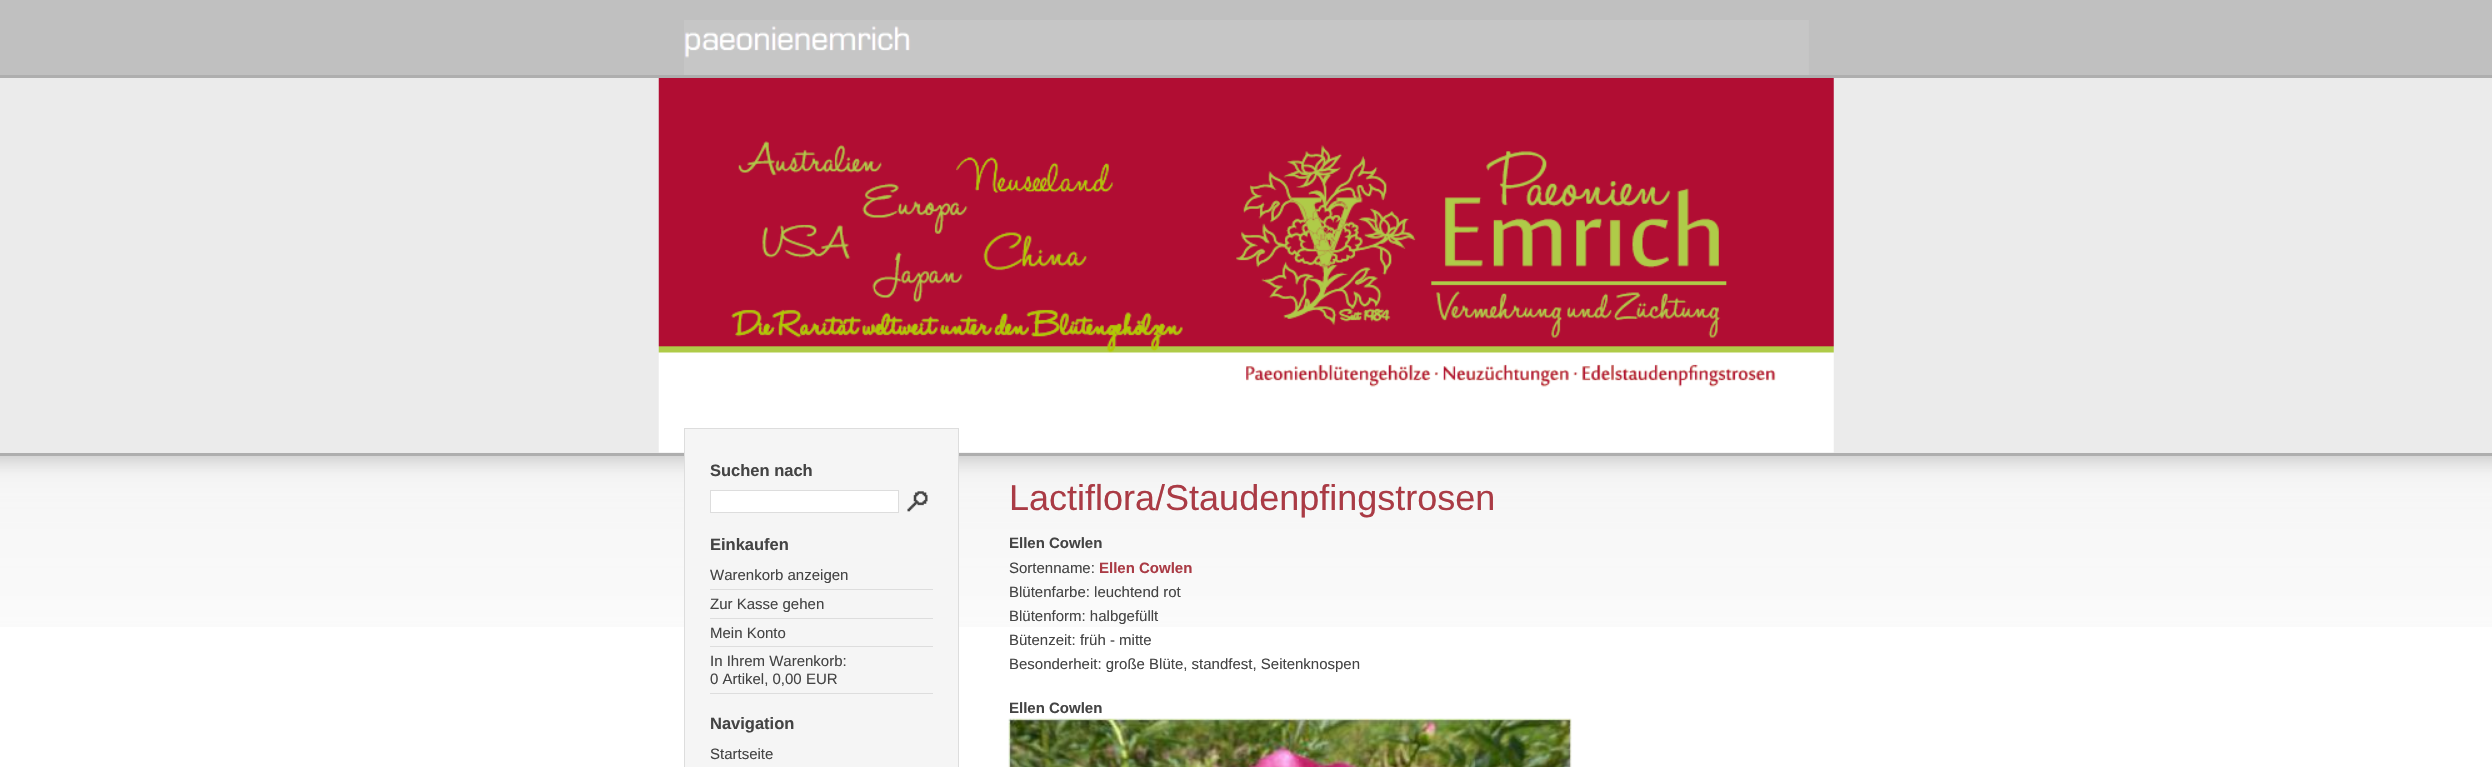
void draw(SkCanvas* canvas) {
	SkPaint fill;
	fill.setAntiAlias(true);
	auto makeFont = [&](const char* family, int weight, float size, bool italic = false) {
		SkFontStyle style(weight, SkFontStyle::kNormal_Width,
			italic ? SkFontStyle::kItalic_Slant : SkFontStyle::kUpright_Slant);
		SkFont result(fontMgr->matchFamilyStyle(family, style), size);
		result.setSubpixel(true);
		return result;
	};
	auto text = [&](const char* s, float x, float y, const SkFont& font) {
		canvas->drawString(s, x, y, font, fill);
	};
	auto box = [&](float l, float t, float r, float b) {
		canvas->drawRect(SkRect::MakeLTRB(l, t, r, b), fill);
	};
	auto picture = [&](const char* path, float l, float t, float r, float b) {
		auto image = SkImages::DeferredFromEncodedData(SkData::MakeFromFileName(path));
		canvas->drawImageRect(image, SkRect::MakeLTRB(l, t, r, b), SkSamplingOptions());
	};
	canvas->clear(0xFFFFFFFF);
	picture("image0.png", 0, 456, 2492, 627);
	fill.setColor(0xFFC0C0C0);
	box(0, 0, 2492, 75);
	picture("image1.png", 684, 20, 1809, 75);
	fill.setColor(0xFFEBEBEB);
	box(0, 78, 2492, 453);
	picture("image2.png", 658, 78, 1834, 453);
	fill.setColor(0xFFAEAEAE);
	box(0, 75, 2492, 78);
	box(0, 453, 2492, 456);
	fill.setColor(0xFFF5F5F5);
	canvas->drawRect(SkRect::MakeLTRB(684.5f, 428.5f, 958.5f, 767.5f), fill);
	fill.setStyle(SkPaint::kStroke_Style);
	fill.setStrokeWidth(1);
	fill.setColor(0xFFDDDDDD);
	canvas->drawRect(SkRect::MakeLTRB(684.5f, 428.5f, 958.5f, 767.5f), fill);
	fill.setStyle(SkPaint::kFill_Style);
	fill.setColor(0xFFFFFFFF);
	canvas->drawRect(SkRect::MakeLTRB(710.5f, 490.5f, 898.5f, 512.5f), fill);
	fill.setStyle(SkPaint::kStroke_Style);
	fill.setColor(0xFFDDDDDD);
	canvas->drawRect(SkRect::MakeLTRB(710.5f, 490.5f, 898.5f, 512.5f), fill);
	picture("image3.png", 907, 491, 928, 512);
	fill.setStyle(SkPaint::kFill_Style);
	box(710, 589, 933, 590);
	box(710, 618, 933, 619);
	box(710, 646, 933, 647);
	box(710, 693, 933, 694);
	picture("image4.png", 1008, 718, 1572, 767);
	auto font1 = makeFont("Liberation Sans", 700, 16.5f);
	fill.setColor(0xFF444444);
	text("Suchen nach", 710, 476, font1);
	text("Einkaufen", 710, 550, font1);
	auto font2 = makeFont("Liberation Sans", 400, 15);
	text("Warenkorb anzeigen", 710, 580, font2);
	text("Zur Kasse gehen", 710, 609, font2);
	text("Mein Konto", 710, 638, font2);
	text("In Ihrem Warenkorb:", 710, 666, font2);
	text("0 Artikel, 0,00 EUR", 710, 684, font2);
	text("Navigation", 710, 729, font1);
	text("Startseite", 710, 759, font2);
	auto font3 = makeFont("Liberation Sans", 400, 36);
	fill.setColor(0xFFAA3B45);
	text("Lactiflora/Staudenpfingstrosen", 1009, 510, font3);
	auto font4 = makeFont("Liberation Sans", 700, 15);
	fill.setColor(0xFF444444);
	text("Ellen Cowlen", 1009, 548, font4);
	text("Sortenname:", 1009, 573, font2);
	fill.setColor(0xFFAA3B45);
	text("Ellen Cowlen", 1099, 573, font4);
	fill.setColor(0xFF444444);
	text("Blütenfarbe: leuchtend rot", 1009, 597, font2);
	text("Blütenform: halbgefüllt", 1009, 621, font2);
	text("Bütenzeit: früh - mitte", 1009, 645, font2);
	text("Besonderheit: große Blüte, standfest, Seitenknospen", 1009, 669, font2);
	text("Ellen Cowlen", 1009, 713, font4);
}
